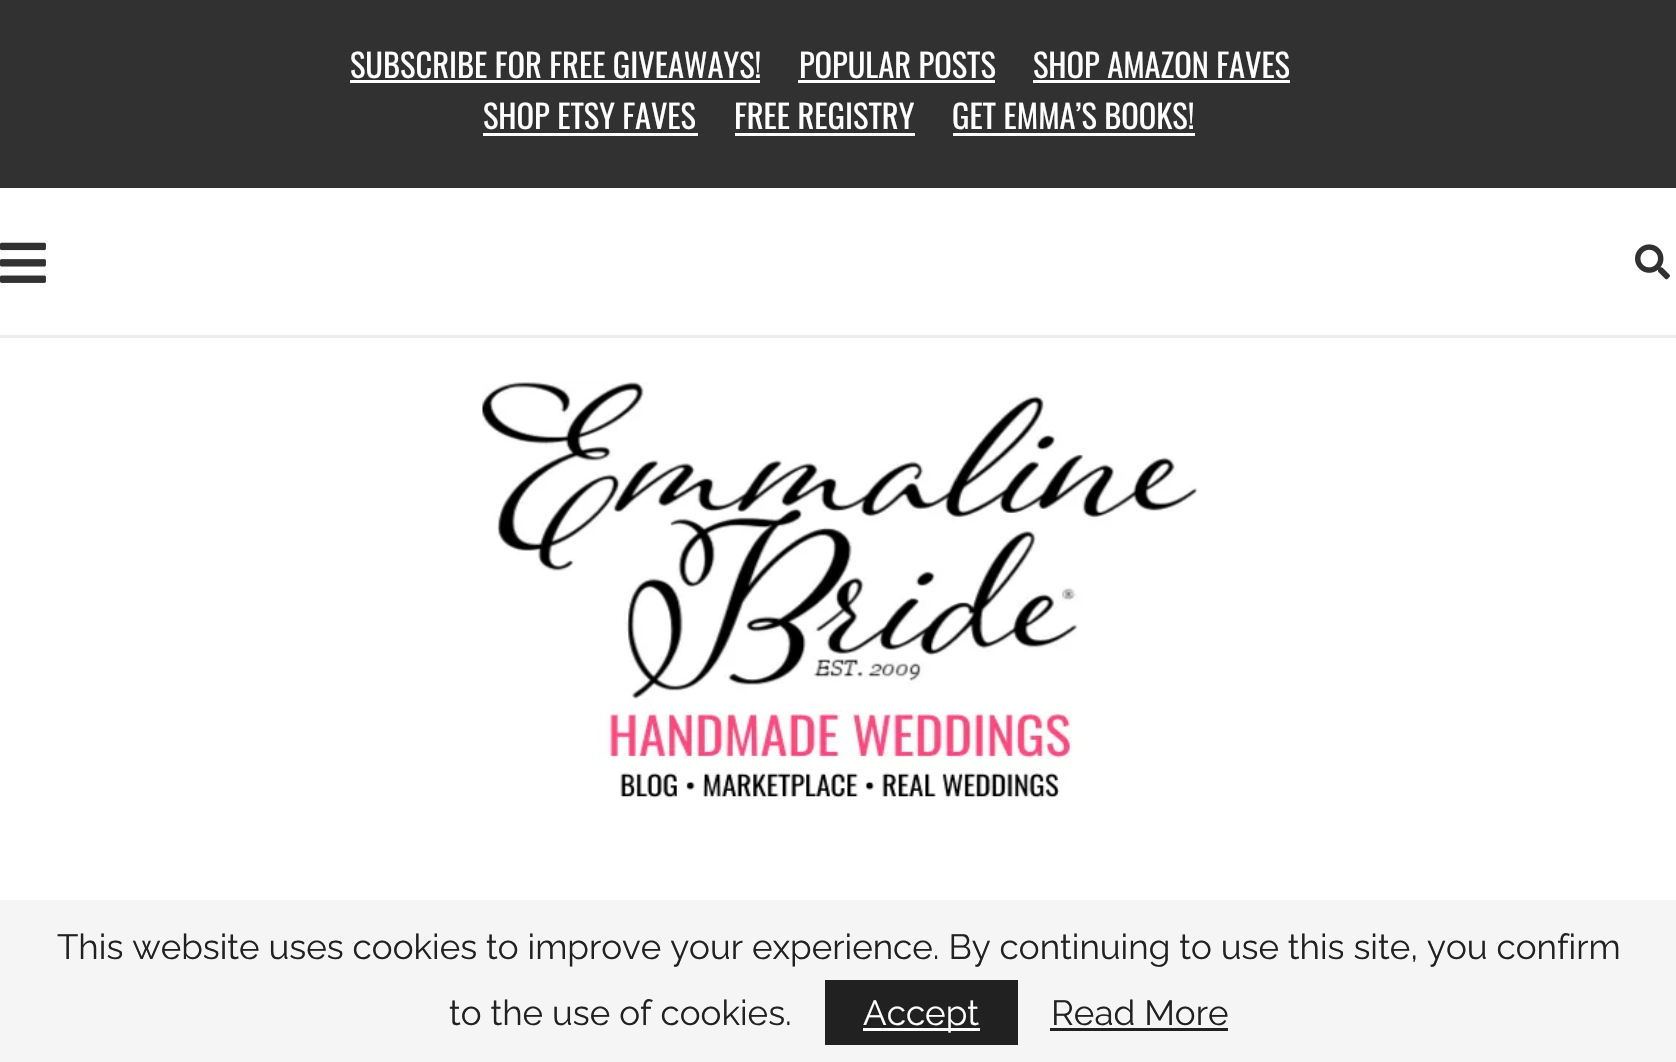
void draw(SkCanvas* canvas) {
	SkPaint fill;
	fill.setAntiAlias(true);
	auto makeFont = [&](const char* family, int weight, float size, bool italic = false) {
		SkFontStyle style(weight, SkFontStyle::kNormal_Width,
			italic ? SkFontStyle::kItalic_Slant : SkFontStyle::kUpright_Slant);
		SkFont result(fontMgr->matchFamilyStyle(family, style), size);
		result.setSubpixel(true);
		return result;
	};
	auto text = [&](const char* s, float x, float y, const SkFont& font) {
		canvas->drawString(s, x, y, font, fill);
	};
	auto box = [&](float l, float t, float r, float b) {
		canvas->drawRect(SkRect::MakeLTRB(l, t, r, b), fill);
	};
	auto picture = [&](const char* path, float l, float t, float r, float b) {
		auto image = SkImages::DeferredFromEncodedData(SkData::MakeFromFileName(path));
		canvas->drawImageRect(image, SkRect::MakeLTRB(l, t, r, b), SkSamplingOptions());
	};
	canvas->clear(0xFFFFFFFF);
	fill.setColor(0xFF313131);
	box(0, 0, 1676, 188);
	fill.setColor(0xFFFFFFFF);
	box(350, 80, 760, 83);
	box(798, 80, 995, 83);
	box(1033, 80, 1290, 83);
	box(483, 133, 698, 136);
	box(735, 133, 915, 136);
	box(953, 133, 1195, 136);
	fill.setColor(0xFFECECEC);
	box(0, 335, 1676, 338);
	picture("image0.png", 0, 242, 46, 283);
	picture("image1.png", 1635, 244, 1670, 280);
	picture("image2.png", 482, 382, 1198, 798);
	fill.setColor(0xFFF5F5F5);
	box(0, 900, 1676, 1062);
	fill.setColor(0xFF212121);
	box(825, 980, 1018, 1045);
	fill.setColor(0xFFFFFFFF);
	box(863, 1028, 980, 1031);
	fill.setColor(0xFF212121);
	box(1050, 1028, 1228, 1031);
	auto font1 = makeFont("Oswald", 400, 32.5f);
	fill.setColor(0xFFFFFFFF);
	text("SUBSCRIBE FOR FREE GIVEAWAYS!", 350, 78, font1);
	text("POPULAR POSTS", 799, 78, font1);
	text("SHOP AMAZON FAVES", 1033, 78, font1);
	text("SHOP ETSY FAVES", 483, 129, font1);
	text("FREE REGISTRY", 734, 129, font1);
	text("GET EMMA’S BOOKS!", 952, 129, font1);
	auto font2 = makeFont("Raleway", 400, 35);
	fill.setColor(0xFF212121);
	text("This website uses cookies to improve your experience. By continuing to use this site, you confirm", 57, 959, font2);
	text("to the use of cookies.", 449, 1025, font2);
	fill.setColor(0xFFFFFFFF);
	text("Accept", 863, 1025, font2);
	fill.setColor(0xFF212121);
	text("Read More", 1051, 1025, font2);
}
